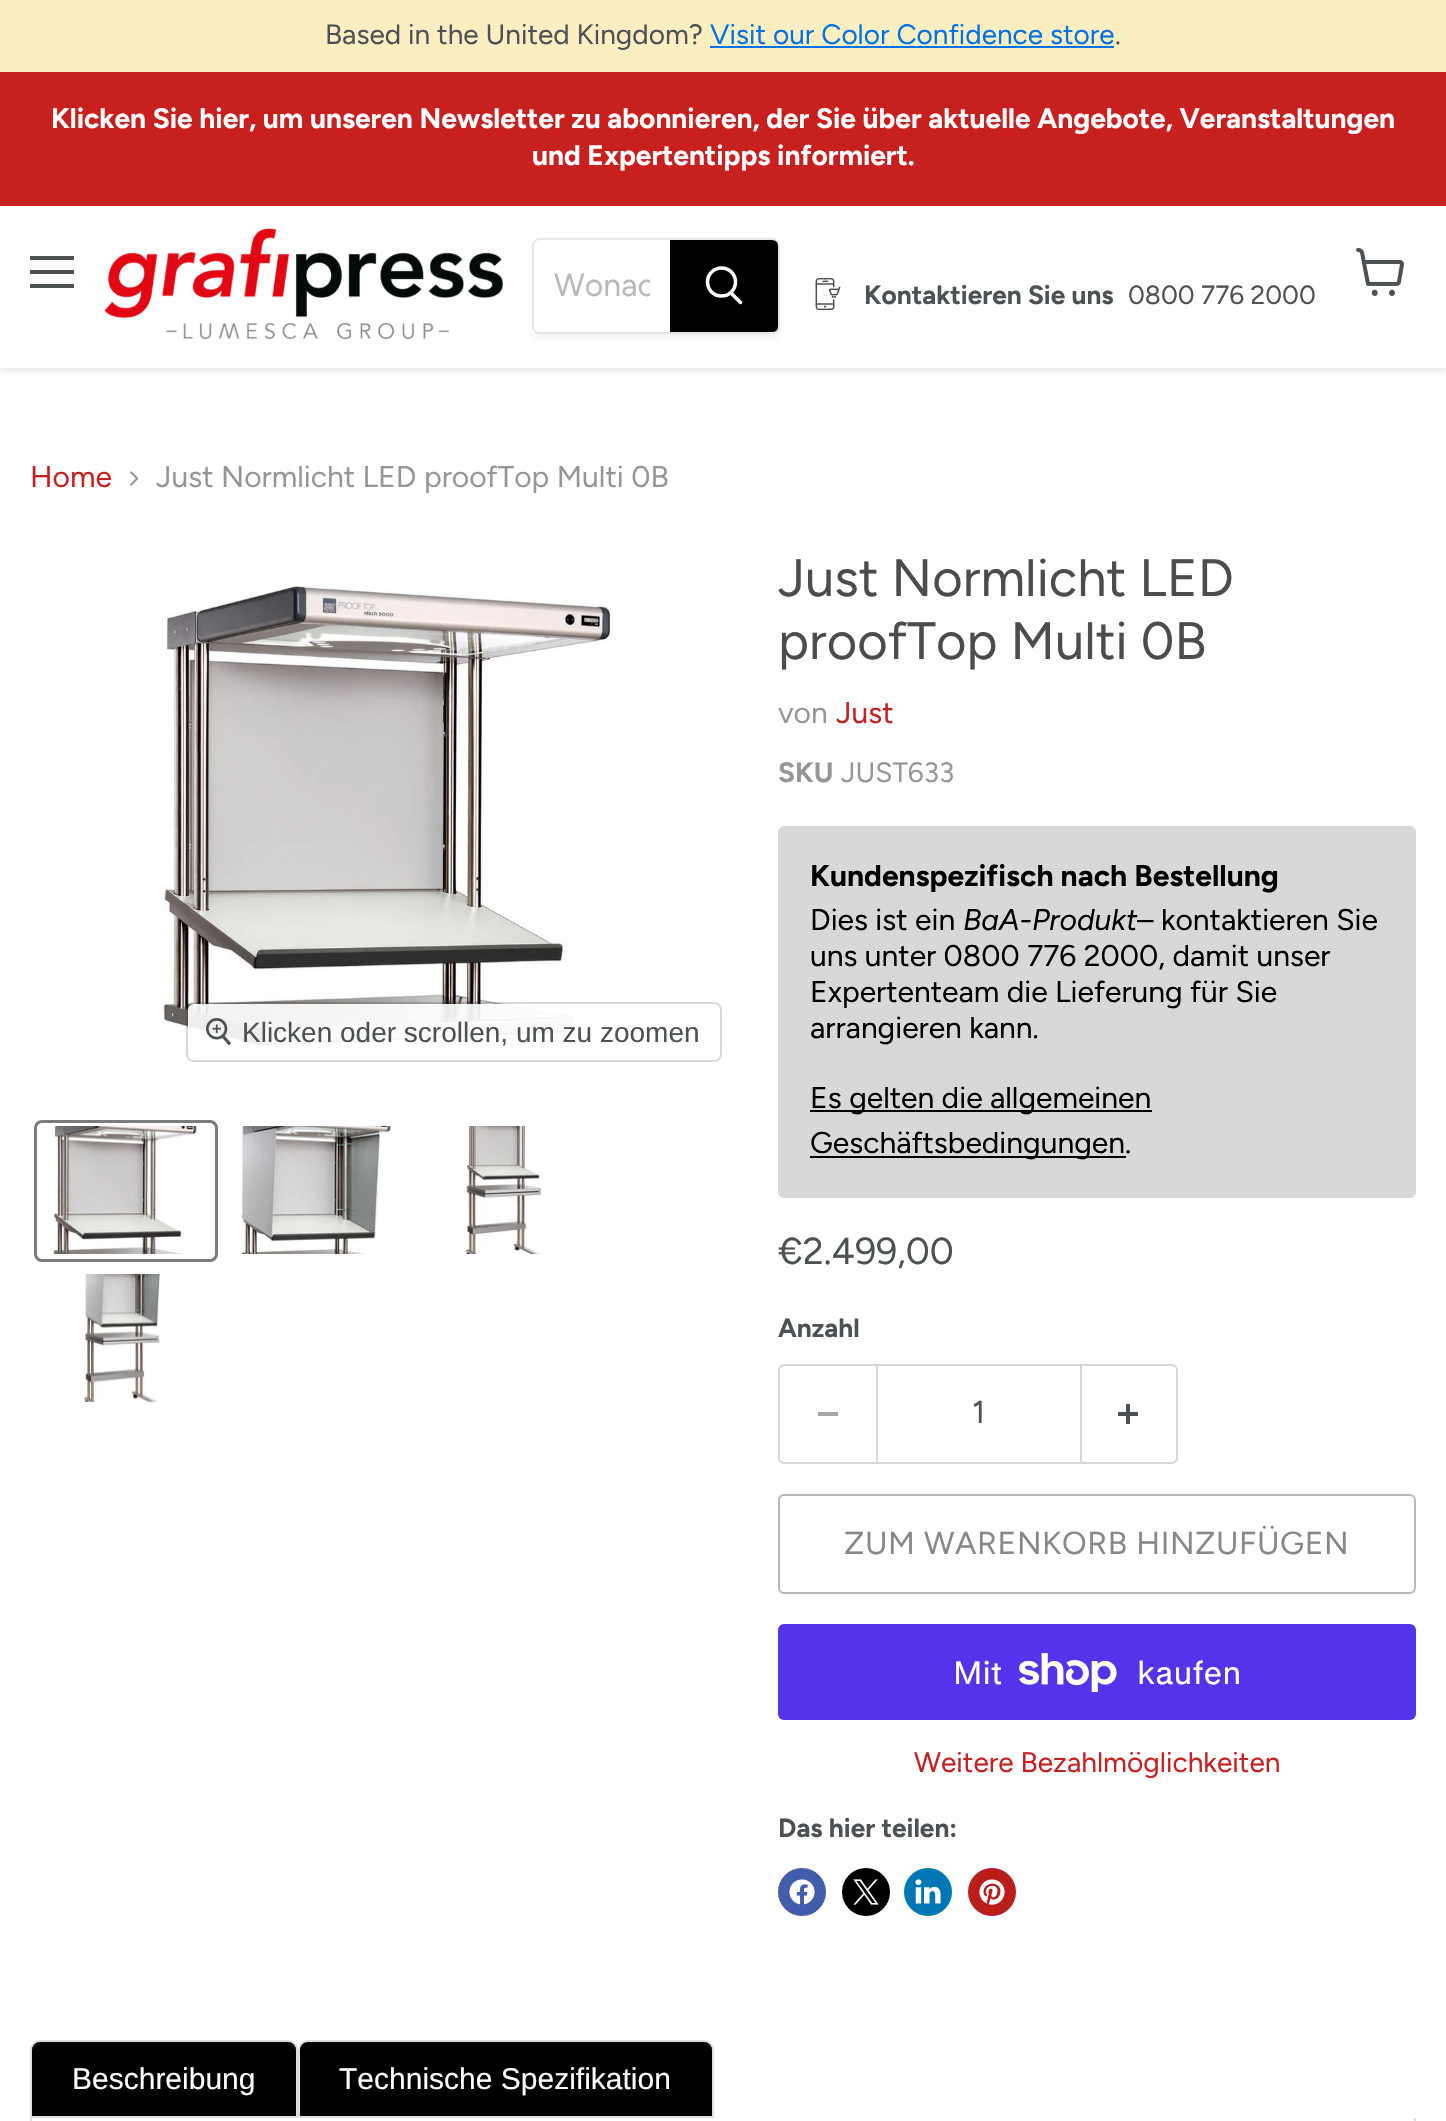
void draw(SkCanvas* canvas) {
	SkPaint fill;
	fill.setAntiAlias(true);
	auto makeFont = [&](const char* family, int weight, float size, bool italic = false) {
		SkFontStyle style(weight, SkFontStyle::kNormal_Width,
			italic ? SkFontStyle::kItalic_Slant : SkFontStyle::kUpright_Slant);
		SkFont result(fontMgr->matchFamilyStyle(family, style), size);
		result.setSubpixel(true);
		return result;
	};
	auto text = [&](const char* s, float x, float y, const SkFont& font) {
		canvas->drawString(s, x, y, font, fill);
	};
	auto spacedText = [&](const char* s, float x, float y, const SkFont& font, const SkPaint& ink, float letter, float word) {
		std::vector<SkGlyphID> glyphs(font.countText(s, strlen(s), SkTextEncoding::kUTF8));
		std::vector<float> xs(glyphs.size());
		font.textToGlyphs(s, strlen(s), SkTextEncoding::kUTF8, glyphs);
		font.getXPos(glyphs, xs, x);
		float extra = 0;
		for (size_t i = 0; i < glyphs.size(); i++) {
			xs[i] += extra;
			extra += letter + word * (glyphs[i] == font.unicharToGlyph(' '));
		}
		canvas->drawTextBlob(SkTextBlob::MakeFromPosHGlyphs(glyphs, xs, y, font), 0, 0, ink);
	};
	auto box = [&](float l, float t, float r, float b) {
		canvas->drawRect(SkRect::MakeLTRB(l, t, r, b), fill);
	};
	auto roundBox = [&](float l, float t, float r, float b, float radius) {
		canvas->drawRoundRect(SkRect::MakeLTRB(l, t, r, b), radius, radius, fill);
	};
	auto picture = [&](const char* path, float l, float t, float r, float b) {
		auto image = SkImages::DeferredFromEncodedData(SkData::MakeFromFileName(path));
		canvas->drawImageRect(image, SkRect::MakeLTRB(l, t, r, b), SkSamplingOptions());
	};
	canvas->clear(0xFFFFFFFF);
	fill.setColor(0xFFFBEEC1);
	box(0, 0, 1446, 72);
	fill.setColor(0xFF0073E6);
	box(710, 46, 1114, 48);
	canvas->save();
	canvas->clipRect(SkRect::MakeLTRB(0, 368, 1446, 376));
	fill.setColor(0x40808080);
	fill.setMaskFilter(SkMaskFilter::MakeBlur(kNormal_SkBlurStyle, 4));
	canvas->drawRect(SkRect::MakeLTRB(0, 208, 1446, 370), fill);
	fill.setMaskFilter(nullptr);
	canvas->restore();
	fill.setColor(0xFFC81F1F);
	box(0, 72, 1446, 206);
	fill.setColor(0xFF4C5154);
	box(30, 256, 74, 260);
	box(30, 270, 74, 274);
	box(30, 284, 74, 288);
	picture("image0.png", 104, 228, 503, 340);
	canvas->save();
	canvas->clipPath(SkPathBuilder(SkPathFillType::kEvenOdd).moveTo(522, 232).lineTo(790, 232).lineTo(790, 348).lineTo(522, 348).close().moveTo(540, 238).lineTo(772, 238).cubicTo(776.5f, 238, 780, 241.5f, 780, 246).lineTo(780, 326).cubicTo(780, 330.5f, 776.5f, 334, 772, 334).lineTo(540, 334).cubicTo(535.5f, 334, 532, 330.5f, 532, 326).lineTo(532, 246).cubicTo(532, 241.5f, 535.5f, 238, 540, 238).close().detach(), true);
	fill.setColor(0x1C808080);
	fill.setMaskFilter(SkMaskFilter::MakeBlur(kNormal_SkBlurStyle, 3));
	canvas->drawRoundRect(SkRect::MakeLTRB(532, 242, 780, 338), 8, 8, fill);
	fill.setMaskFilter(nullptr);
	canvas->restore();
	fill.setStyle(SkPaint::kStroke_Style);
	fill.setStrokeWidth(2);
	fill.setColor(0x33808080);
	canvas->drawRoundRect(SkRect::MakeLTRB(533, 239, 779, 333), 7, 7, fill);
	fill.setStyle(SkPaint::kFill_Style);
	fill.setColor(0xFFFFFFFF);
	canvas->drawPath(SkPathBuilder().moveTo(540, 240).lineTo(670, 240).lineTo(670, 332).lineTo(540, 332).cubicTo(536.5f, 332, 534, 329.5f, 534, 326).lineTo(534, 246).cubicTo(534, 242.5f, 536.5f, 240, 540, 240).close().detach(), fill);
	fill.setColor(0xFF000000);
	canvas->drawPath(SkPathBuilder().moveTo(671, 241).lineTo(772, 241).cubicTo(775, 241, 777, 243, 777, 246).lineTo(777, 326).cubicTo(777, 329, 775, 331, 772, 331).lineTo(671, 331).close().detach(), fill);
	fill.setStyle(SkPaint::kStroke_Style);
	canvas->drawPath(SkPathBuilder().moveTo(671, 241).lineTo(772, 241).cubicTo(775, 241, 777, 243, 777, 246).lineTo(777, 326).cubicTo(777, 329, 775, 331, 772, 331).lineTo(671, 331).close().detach(), fill);
	fill.setStrokeWidth(3.5f);
	fill.setStrokeCap(SkPaint::kRound_Cap);
	fill.setColor(0xFFFFFFFF);
	canvas->drawPath(SkPathBuilder().moveTo(740.5f, 302.5f).lineTo(731, 293).detach(), fill);
	fill.setStrokeCap(SkPaint::kButt_Cap);
	canvas->drawCircle(721.5f, 282, 14, fill);
	picture("image1.png", 815, 278, 841, 310);
	picture("image2.png", 1356, 248, 1404, 296);
	picture("image3.png", 129, 471, 139, 486);
	picture("image4.png", 163, 586, 612, 1046);
	fill.setStrokeWidth(2);
	fill.setColor(0x26000000);
	canvas->drawRoundRect(SkRect::MakeLTRB(187, 1003, 721, 1061), 7, 7, fill);
	fill.setStyle(SkPaint::kFill_Style);
	fill.setColor(0xE6FFFFFF);
	roundBox(188, 1004, 720, 1060, 6);
	picture("image5.png", 206, 1018, 232, 1046);
	fill.setStyle(SkPaint::kStroke_Style);
	fill.setStrokeWidth(3);
	fill.setColor(0xFF7C7C7C);
	canvas->drawRoundRect(SkRect::MakeLTRB(35.5f, 1121.5f, 216.5f, 1260.5f), 6.5f, 6.5f, fill);
	picture("image6.png", 53, 1126, 199, 1254);
	picture("image7.png", 241, 1126, 391, 1254);
	picture("image8.png", 465, 1126, 543, 1254);
	picture("image9.png", 84, 1274, 161, 1402);
	fill.setStyle(SkPaint::kFill_Style);
	fill.setColor(0xFFD8D8D8);
	roundBox(778, 826, 1416, 1198, 6);
	fill.setColor(0xFF000000);
	box(810, 1110, 1152, 1112);
	box(810, 1156, 1126, 1158);
	fill.setColor(0xFFD8D8D8);
	canvas->drawPath(SkPathBuilder(SkPathFillType::kEvenOdd).moveTo(784, 1364).lineTo(876, 1364).lineTo(876, 1464).lineTo(784, 1464).cubicTo(781, 1464, 778, 1461, 778, 1458).lineTo(778, 1370).cubicTo(778, 1367, 781, 1364, 784, 1364).close().moveTo(784, 1366).lineTo(876, 1366).lineTo(876, 1462).lineTo(784, 1462).cubicTo(782, 1462, 780, 1460, 780, 1458).lineTo(780, 1370).cubicTo(780, 1368, 782, 1366, 784, 1366).close().detach(), fill);
	fill.setColor(0xFFA6A8AA);
	box(818, 1412, 838, 1416);
	fill.setStyle(SkPaint::kStroke_Style);
	fill.setStrokeWidth(2);
	fill.setColor(0xFFD8D8D8);
	canvas->drawRect(SkRect::MakeLTRB(877, 1365, 1081, 1463), fill);
	fill.setStyle(SkPaint::kFill_Style);
	canvas->drawPath(SkPathBuilder(SkPathFillType::kEvenOdd).moveTo(1082, 1364).lineTo(1172, 1364).cubicTo(1175, 1364, 1178, 1367, 1178, 1370).lineTo(1178, 1458).cubicTo(1178, 1461, 1175, 1464, 1172, 1464).lineTo(1082, 1464).close().moveTo(1082, 1366).lineTo(1172, 1366).cubicTo(1174, 1366, 1176, 1368, 1176, 1370).lineTo(1176, 1458).cubicTo(1176, 1460, 1174, 1462, 1172, 1462).lineTo(1082, 1462).close().detach(), fill);
	picture("image10.png", 1118, 1404, 1138, 1424);
	fill.setStyle(SkPaint::kStroke_Style);
	fill.setColor(0xFFB8B8B8);
	canvas->drawRoundRect(SkRect::MakeLTRB(779, 1495, 1415, 1593), 5, 5, fill);
	fill.setStyle(SkPaint::kFill_Style);
	fill.setColor(0xFF5433EB);
	roundBox(778, 1624, 1416, 1720, 6);
	picture("image11.png", 1019, 1653, 1117, 1692);
	fill.setColor(0xFF425DAB);
	canvas->drawCircle(802, 1892, 24, fill);
	picture("image12.png", 789, 1879, 815, 1905);
	fill.setColor(0xFF000000);
	canvas->drawCircle(866, 1892, 24, fill);
	picture("image13.png", 853, 1879, 879, 1905);
	fill.setColor(0xFF0077B5);
	canvas->drawCircle(928, 1892, 24, fill);
	picture("image14.png", 915, 1879, 941, 1904);
	fill.setColor(0xFFBD1C1C);
	canvas->drawCircle(992, 1892, 24, fill);
	picture("image15.png", 979, 1879, 1005, 1905);
	fill.setColor(0xFF000000);
	canvas->drawPath(SkPathBuilder().moveTo(40, 2041).lineTo(288, 2041).cubicTo(293, 2041, 297, 2045, 297, 2050).lineTo(297, 2117).lineTo(31, 2117).lineTo(31, 2050).cubicTo(31, 2045, 35, 2041, 40, 2041).close().detach(), fill);
	fill.setStyle(SkPaint::kStroke_Style);
	fill.setColor(0xFFDDDDDD);
	canvas->drawPath(SkPathBuilder().moveTo(40, 2041).lineTo(288, 2041).cubicTo(293, 2041, 297, 2045, 297, 2050).lineTo(297, 2117).lineTo(31, 2117).lineTo(31, 2050).cubicTo(31, 2045, 35, 2041, 40, 2041).close().detach(), fill);
	fill.setStyle(SkPaint::kFill_Style);
	fill.setColor(0xFF000000);
	canvas->drawPath(SkPathBuilder().moveTo(308, 2041).lineTo(704, 2041).cubicTo(709, 2041, 713, 2045, 713, 2050).lineTo(713, 2117).lineTo(299, 2117).lineTo(299, 2050).cubicTo(299, 2045, 303, 2041, 308, 2041).close().detach(), fill);
	fill.setStyle(SkPaint::kStroke_Style);
	fill.setColor(0xFFDDDDDD);
	canvas->drawPath(SkPathBuilder().moveTo(308, 2041).lineTo(704, 2041).cubicTo(709, 2041, 713, 2045, 713, 2050).lineTo(713, 2117).lineTo(299, 2117).lineTo(299, 2050).cubicTo(299, 2045, 303, 2041, 308, 2041).close().detach(), fill);
	fill.setStyle(SkPaint::kFill_Style);
	box(1414, 2118, 1416, 2121);
	box(30, 2118, 32, 2121);
	auto font1 = makeFont("Figtree", 400, 28);
	fill.setColor(0xFF4C5154);
	text("Based in the United Kingdom?", 325, 44, font1);
	fill.setColor(0xFF0073E6);
	text("Visit our Color Confidence store", 710, 44, font1);
	fill.setColor(0xFF4C5154);
	text(".", 1115, 44, font1);
	auto font2 = makeFont("Figtree", 700, 28.1f);
	fill.setColor(0xFFFFFFFF);
	text("Klicken Sie hier, um unseren Newsletter zu abonnieren, der Sie über aktuelle Angebote, Veranstaltungen", 51, 128, font2);
	text("und Expertentipps informiert.", 532, 165, font2);
	canvas->save();
	canvas->clipRect(SkRect::MakeLTRB(554, 266, 650, 304));
	auto font3 = makeFont("Figtree", 400, 32);
	fill.setColor(0xFFB7B9BB);
	text("Wonac", 554, 296, font3);
	canvas->restore();
	auto font4 = makeFont("Figtree", 700, 26.25f);
	fill.setColor(0xFF4C5154);
	text("Kontaktieren Sie uns", 864, 304, font4);
	auto font5 = makeFont("Figtree", 400, 26.25f);
	text("0800 776 2000", 1128, 304, font5);
	auto font6 = makeFont("Figtree", 400, 30);
	fill.setColor(0xFFC81F1F);
	text("Home", 30, 487, font6);
	fill.setColor(0xFF949798);
	text("Just Normlicht LED proofTop Multi 0B", 156, 487, font6);
	auto font7 = makeFont("Liberation Sans", 400, 28);
	fill.setColor(0xFF4C5154);
	text("Klicken oder scrollen, um zu zoomen", 242, 1042, font7);
	auto font8 = makeFont("Figtree", 400, 52.5f);
	fill.setColor(0xFF4C4C4C);
	text("Just Normlicht LED", 778, 596, font8);
	text("proofTop Multi 0B", 778, 659, font8);
	fill.setColor(0xFF949798);
	text("von", 778, 723, font6);
	fill.setColor(0xFFC81F1F);
	text("Just", 836, 723, font6);
	auto font9 = makeFont("Figtree", 700, 28);
	fill.setColor(0xFF949798);
	text("SKU", 778, 782, font9);
	text("JUST633", 841, 782, font1);
	auto font10 = makeFont("Figtree", 700, 30);
	fill.setColor(0xFF000000);
	text("Kundenspezifisch nach Bestellung", 810, 886, font10);
	text("Dies ist ein", 810, 930, font6);
	auto font11 = makeFont("Figtree", 400, 30, true);
	text("BaA-Produkt", 963, 930, font11);
	text("– kontaktieren Sie", 1137, 930, font6);
	text("uns unter 0800 776 2000, damit unser", 810, 966, font6);
	text("Expertenteam die Lieferung für Sie", 810, 1002, font6);
	text("arrangieren kann.", 810, 1038, font6);
	text("Es gelten die allgemeinen", 810, 1108, font6);
	text("Geschäftsbedingungen.", 810, 1153, font6);
	auto font12 = makeFont("Figtree", 400, 37.5f);
	fill.setColor(0xFF4C5154);
	text("€2.499,00", 778, 1264, font12);
	text("Anzahl", 778, 1337, font4);
	auto font13 = makeFont("Figtree", 400, 31.75f);
	text("1", 972, 1423, font13);
	fill.setColor(0xFF888888);
	spacedText("ZUM WARENKORB HINZUFÜGEN", 844, 1554, font13, fill, 0.6f, 0);
	auto font14 = makeFont("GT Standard", 400, 32);
	fill.setColor(0xFFFFFFFF);
	text("Mit", 953, 1684, font14);
	text("kaufen", 1137, 1684, font14);
	auto font15 = makeFont("Figtree", 400, 28.1f);
	fill.setColor(0xFFC81F1F);
	text("Weitere Bezahlmöglichkeiten", 914, 1772, font15);
	fill.setColor(0xFF4C5154);
	text("Das hier teilen:", 778, 1837, font4);
	auto font16 = makeFont("Liberation Sans", 400, 30);
	fill.setColor(0xFFFFFFFF);
	text("Beschreibung", 72, 2089, font16);
	text("Technische Spezifikation", 339, 2089, font16);
}
